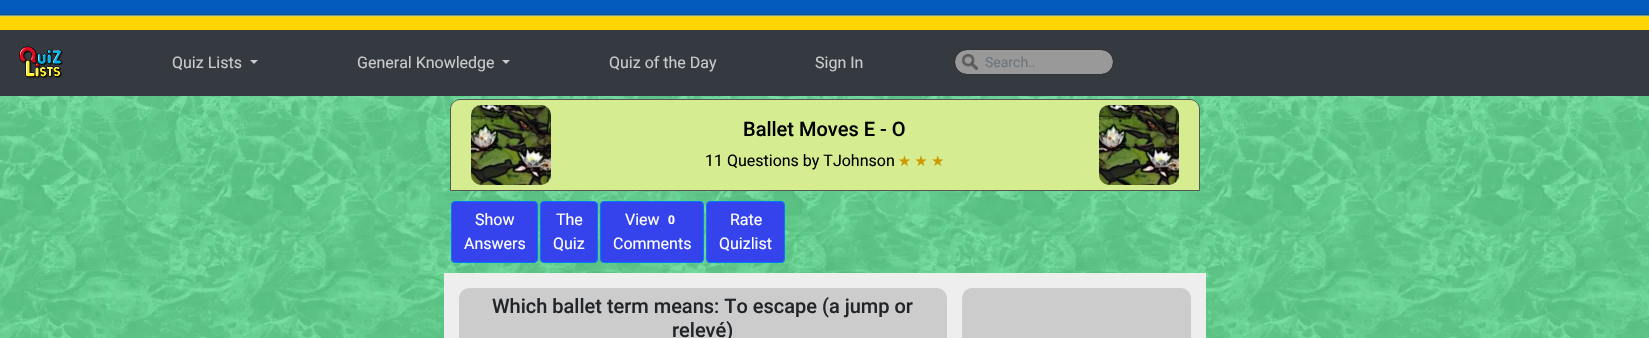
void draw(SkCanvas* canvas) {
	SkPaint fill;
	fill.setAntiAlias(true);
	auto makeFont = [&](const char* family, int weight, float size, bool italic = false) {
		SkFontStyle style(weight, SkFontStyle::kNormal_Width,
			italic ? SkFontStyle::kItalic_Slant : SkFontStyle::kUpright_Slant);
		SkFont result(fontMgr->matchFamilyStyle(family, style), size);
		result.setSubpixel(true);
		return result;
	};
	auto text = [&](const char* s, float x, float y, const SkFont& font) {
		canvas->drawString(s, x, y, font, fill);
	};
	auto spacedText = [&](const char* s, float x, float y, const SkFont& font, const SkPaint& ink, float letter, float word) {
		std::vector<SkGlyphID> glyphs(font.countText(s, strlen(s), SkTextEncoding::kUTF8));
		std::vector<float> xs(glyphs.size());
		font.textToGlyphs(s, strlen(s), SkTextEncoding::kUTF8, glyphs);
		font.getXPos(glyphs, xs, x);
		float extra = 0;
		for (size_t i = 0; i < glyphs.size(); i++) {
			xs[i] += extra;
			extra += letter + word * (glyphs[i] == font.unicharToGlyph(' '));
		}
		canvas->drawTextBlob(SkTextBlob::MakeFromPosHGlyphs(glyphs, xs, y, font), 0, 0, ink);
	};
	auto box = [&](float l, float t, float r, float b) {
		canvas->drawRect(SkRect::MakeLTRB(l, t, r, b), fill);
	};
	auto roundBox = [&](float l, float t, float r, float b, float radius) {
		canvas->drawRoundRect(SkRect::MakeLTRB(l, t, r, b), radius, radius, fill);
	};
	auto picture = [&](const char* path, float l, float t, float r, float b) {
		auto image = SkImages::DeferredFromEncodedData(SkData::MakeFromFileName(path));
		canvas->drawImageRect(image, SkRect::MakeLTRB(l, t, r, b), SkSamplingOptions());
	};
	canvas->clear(0xFFFFFFFF);
	picture("image0.png", 0, 96, 1649, 338);
	picture("image1.png", 0, 0, 1649, 30);
	fill.setColor(0xFF343A40);
	box(0, 30, 1649, 96);
	picture("image2.png", 19, 46, 63, 79);
	fill.setColor(0xFFCBCBCB);
	canvas->drawPath(SkPathBuilder().moveTo(250, 60).lineTo(258, 60).lineTo(254, 64).close().detach(), fill);
	canvas->drawPath(SkPathBuilder().moveTo(502, 60).lineTo(510, 60).lineTo(506, 64).close().detach(), fill);
	fill.setColor(0xFF999999);
	roundBox(955, 50, 1113, 74, 12);
	picture("image3.png", 962, 54, 978, 70);
	fill.setStyle(SkPaint::kStroke_Style);
	fill.setStrokeWidth(1);
	fill.setColor(0xFF333333);
	canvas->drawRoundRect(SkRect::MakeLTRB(954.5f, 49.5f, 1113.5f, 74.5f), 12.5f, 12.5f, fill);
	fill.setStyle(SkPaint::kFill_Style);
	fill.setColor(0xFFD5EC90);
	canvas->drawPath(SkPathBuilder().moveTo(460, 99.5f).lineTo(1190, 99.5f).cubicTo(1195, 99.5f, 1199.5f, 104, 1199.5f, 109).lineTo(1199.5f, 190.5f).lineTo(450.5f, 190.5f).lineTo(450.5f, 109).cubicTo(450.5f, 104, 455, 99.5f, 460, 99.5f).close().detach(), fill);
	fill.setStyle(SkPaint::kStroke_Style);
	fill.setColor(0xFF555555);
	canvas->drawPath(SkPathBuilder().moveTo(460, 99.5f).lineTo(1190, 99.5f).cubicTo(1195, 99.5f, 1199.5f, 104, 1199.5f, 109).lineTo(1199.5f, 190.5f).lineTo(450.5f, 190.5f).lineTo(450.5f, 109).cubicTo(450.5f, 104, 455, 99.5f, 460, 99.5f).close().detach(), fill);
	picture("image4.png", 471, 105, 551, 185);
	picture("image5.png", 1099, 105, 1179, 185);
	fill.setStyle(SkPaint::kFill_Style);
	fill.setColor(0xFF3443EB);
	canvas->drawRoundRect(SkRect::MakeLTRB(451.5f, 201.5f, 537.5f, 262.5f), 3.5f, 3.5f, fill);
	fill.setStyle(SkPaint::kStroke_Style);
	fill.setColor(0xFF007BFF);
	canvas->drawRoundRect(SkRect::MakeLTRB(451.5f, 201.5f, 537.5f, 262.5f), 3.5f, 3.5f, fill);
	fill.setStyle(SkPaint::kFill_Style);
	fill.setColor(0xFF3443EB);
	canvas->drawRoundRect(SkRect::MakeLTRB(540.5f, 201.5f, 597.5f, 262.5f), 3.5f, 3.5f, fill);
	fill.setStyle(SkPaint::kStroke_Style);
	fill.setColor(0xFF007BFF);
	canvas->drawRoundRect(SkRect::MakeLTRB(540.5f, 201.5f, 597.5f, 262.5f), 3.5f, 3.5f, fill);
	fill.setStyle(SkPaint::kFill_Style);
	fill.setColor(0xFF3443EB);
	canvas->drawRoundRect(SkRect::MakeLTRB(600.5f, 201.5f, 703.5f, 262.5f), 3.5f, 3.5f, fill);
	fill.setStyle(SkPaint::kStroke_Style);
	fill.setColor(0xFF007BFF);
	canvas->drawRoundRect(SkRect::MakeLTRB(600.5f, 201.5f, 703.5f, 262.5f), 3.5f, 3.5f, fill);
	fill.setStyle(SkPaint::kFill_Style);
	fill.setColor(0xFF3443EB);
	canvas->drawRoundRect(SkRect::MakeLTRB(706.5f, 201.5f, 784.5f, 262.5f), 3.5f, 3.5f, fill);
	fill.setStyle(SkPaint::kStroke_Style);
	fill.setColor(0xFF007BFF);
	canvas->drawRoundRect(SkRect::MakeLTRB(706.5f, 201.5f, 784.5f, 262.5f), 3.5f, 3.5f, fill);
	fill.setStyle(SkPaint::kFill_Style);
	fill.setColor(0xFFEEEEEE);
	box(444, 273, 1206, 338);
	fill.setColor(0xFFCCCCCC);
	roundBox(459, 288, 947, 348, 10);
	roundBox(962, 288, 1191, 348, 10);
	auto font1 = makeFont("Roboto", 400, 16);
	fill.setColor(0xFFCBCBCB);
	text("Quiz Lists", 172, 68, font1);
	text("General Knowledge", 357, 68, font1);
	text("Quiz of the Day", 609, 68, font1);
	text("Sign In", 815, 68, font1);
	auto font2 = makeFont("Roboto", 400, 14);
	fill.setColor(0xFF6C757D);
	text("Search..", 985, 67, font2);
	auto font3 = makeFont("Roboto", 500, 20);
	fill.setColor(0xFF000000);
	text("Ballet Moves E - O", 743, 136, font3);
	text("11 Questions by TJohnson", 705, 166, font1);
	auto font4 = makeFont("DejaVu Sans", 400, 14.5f);
	fill.setColor(0xFFCC9900);
	spacedText("★ ★ ★", 898, 166, font4, fill, 0, -1);
	fill.setColor(0xFFFFFFFF);
	text("Show", 475, 225, font1);
	text("Answers", 464, 249, font1);
	text("The", 556, 225, font1);
	text("Quiz", 553, 249, font1);
	text("View", 625, 225, font1);
	auto font5 = makeFont("Roboto", 700, 12);
	text("0", 668, 224, font5);
	text("Comments", 613, 249, font1);
	text("Rate", 730, 225, font1);
	text("Quizlist", 719, 249, font1);
	fill.setColor(0xFF212529);
	text("Which ballet term means: To escape (a jump or", 492, 313, font3);
	text("relevé)", 672, 337, font3);
}
